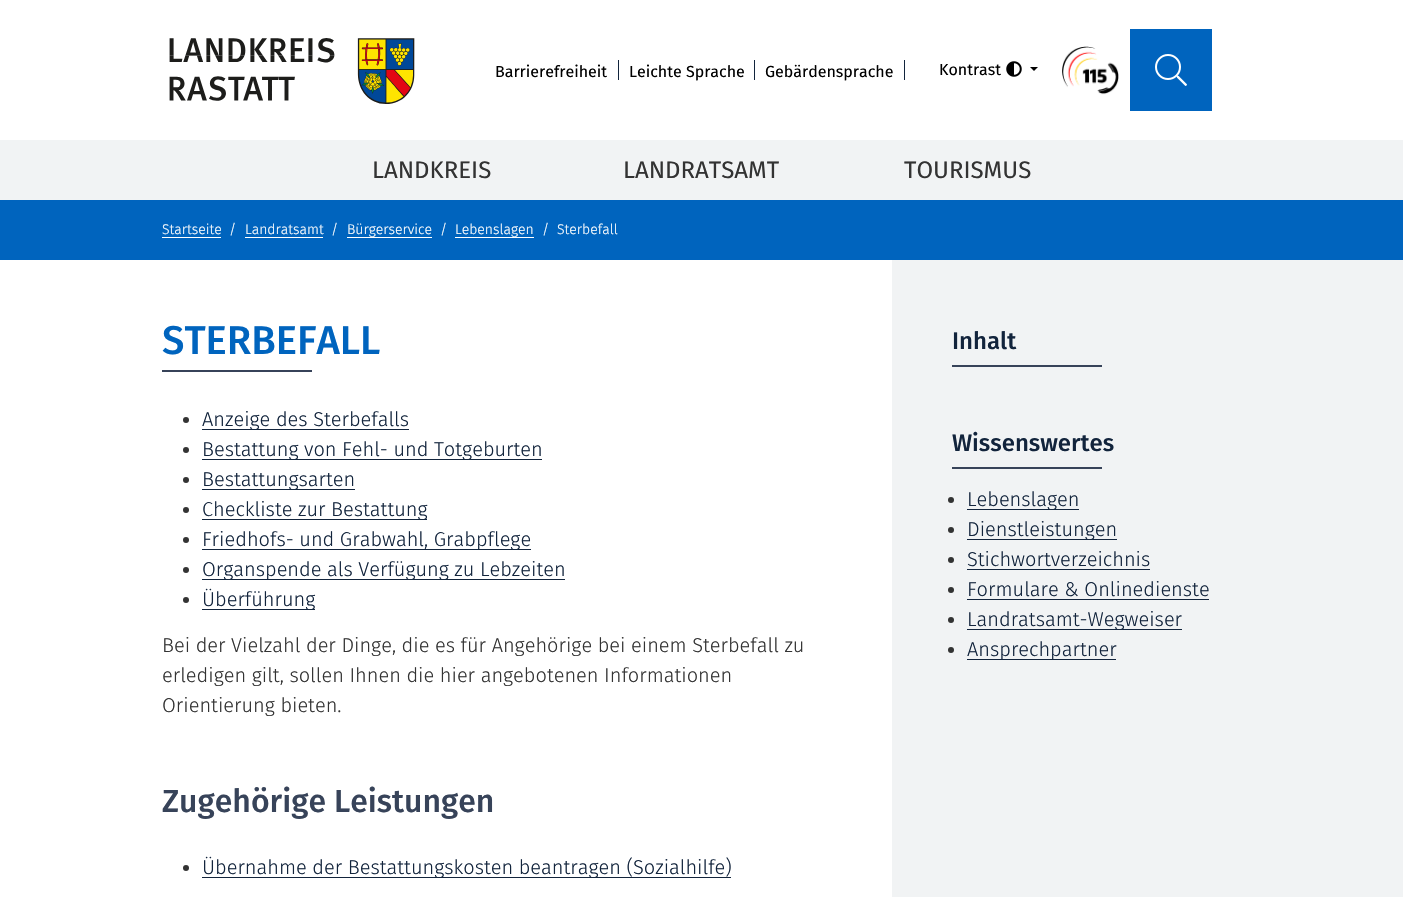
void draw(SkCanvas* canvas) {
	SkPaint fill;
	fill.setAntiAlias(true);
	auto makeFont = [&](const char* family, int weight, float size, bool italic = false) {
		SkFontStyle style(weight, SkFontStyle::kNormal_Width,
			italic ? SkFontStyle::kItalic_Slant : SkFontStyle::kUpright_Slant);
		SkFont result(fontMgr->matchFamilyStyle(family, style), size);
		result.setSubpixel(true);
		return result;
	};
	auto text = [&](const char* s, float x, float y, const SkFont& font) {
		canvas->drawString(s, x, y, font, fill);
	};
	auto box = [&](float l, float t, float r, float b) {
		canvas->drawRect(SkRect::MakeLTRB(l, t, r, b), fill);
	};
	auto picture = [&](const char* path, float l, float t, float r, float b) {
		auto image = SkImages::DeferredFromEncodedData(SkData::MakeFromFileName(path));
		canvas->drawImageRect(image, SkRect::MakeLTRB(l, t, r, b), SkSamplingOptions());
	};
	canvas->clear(0xFFFFFFFF);
	picture("image0.png", 169, 38, 415, 104);
	fill.setColor(0xFF12243C);
	box(618, 60, 619, 80);
	box(754, 60, 755, 80);
	box(904, 60, 905, 80);
	picture("image1.png", 1006, 61, 1022, 77);
	fill.setColor(0xFF000000);
	canvas->drawPath(SkPathBuilder().moveTo(1030, 67).lineTo(1038, 67).lineTo(1034, 71).close().detach(), fill);
	picture("image2.png", 1062, 46, 1119, 95);
	fill.setColor(0xFF0064BE);
	box(1130, 29, 1212, 111);
	picture("image3.png", 1155, 54, 1187, 86);
	fill.setColor(0xFFF1F3F4);
	box(0, 140, 1403, 200);
	fill.setColor(0xFF0064BE);
	box(0, 200, 1403, 260);
	fill.setColor(0xFFFFFFFF);
	box(162, 237, 221, 238);
	box(245, 237, 323, 238);
	box(347, 237, 432, 238);
	box(455, 237, 534, 238);
	fill.setColor(0xFF374359);
	box(162, 370, 312, 372);
	fill.setColor(0xFF333333);
	canvas->drawCircle(186, 420, 3, fill);
	fill.setColor(0xFF12243C);
	box(202, 429, 409, 430);
	fill.setColor(0xFF333333);
	canvas->drawCircle(186, 450, 3, fill);
	fill.setColor(0xFF12243C);
	box(202, 459, 542, 460);
	fill.setColor(0xFF333333);
	canvas->drawCircle(186, 480, 3, fill);
	fill.setColor(0xFF12243C);
	box(202, 489, 355, 490);
	fill.setColor(0xFF333333);
	canvas->drawCircle(186, 510, 3, fill);
	fill.setColor(0xFF12243C);
	box(202, 519, 427, 520);
	fill.setColor(0xFF333333);
	canvas->drawCircle(186, 540, 3, fill);
	fill.setColor(0xFF12243C);
	box(202, 549, 531, 550);
	fill.setColor(0xFF333333);
	canvas->drawCircle(186, 570, 3, fill);
	fill.setColor(0xFF12243C);
	box(202, 579, 565, 580);
	fill.setColor(0xFF333333);
	canvas->drawCircle(186, 600, 3, fill);
	fill.setColor(0xFF12243C);
	box(202, 609, 315, 610);
	fill.setColor(0xFF333333);
	canvas->drawCircle(186, 868, 3, fill);
	fill.setColor(0xFF12243C);
	box(202, 877, 731, 878);
	fill.setColor(0xFFF1F3F4);
	box(892, 260, 1403, 897);
	fill.setColor(0xFF374359);
	box(952, 365, 1102, 367);
	box(952, 467, 1102, 469);
	fill.setColor(0xFF333333);
	canvas->drawCircle(951, 500, 3, fill);
	fill.setColor(0xFF12243C);
	box(967, 509, 1079, 510);
	fill.setColor(0xFF333333);
	canvas->drawCircle(951, 530, 3, fill);
	fill.setColor(0xFF12243C);
	box(967, 539, 1117, 540);
	fill.setColor(0xFF333333);
	canvas->drawCircle(951, 560, 3, fill);
	fill.setColor(0xFF12243C);
	box(967, 569, 1150, 570);
	fill.setColor(0xFF333333);
	canvas->drawCircle(951, 590, 3, fill);
	fill.setColor(0xFF12243C);
	box(967, 599, 1209, 600);
	fill.setColor(0xFF333333);
	canvas->drawCircle(951, 620, 3, fill);
	fill.setColor(0xFF12243C);
	box(967, 629, 1182, 630);
	fill.setColor(0xFF333333);
	canvas->drawCircle(951, 650, 3, fill);
	fill.setColor(0xFF12243C);
	box(967, 659, 1116, 660);
	auto font1 = makeFont("Fira Sans", 400, 16);
	fill.setColor(0xFF000000);
	text("Barrierefreiheit", 495, 77, font1);
	text("Leichte Sprache", 629, 77, font1);
	text("Gebärdensprache", 765, 77, font1);
	text("Kontrast", 939, 75, font1);
	auto font2 = makeFont("Fira Sans", 400, 24);
	fill.setColor(0xFF333333);
	text("LANDKREIS", 372, 178, font2);
	text("LANDRATSAMT", 623, 178, font2);
	text("TOURISMUS", 904, 178, font2);
	auto font3 = makeFont("Fira Sans", 300, 14);
	fill.setColor(0xFFFFFFFF);
	text("Startseite", 162, 234, font3);
	text("/", 229, 234, font3);
	text("Landratsamt", 245, 234, font3);
	text("/", 331, 234, font3);
	text("Bürgerservice", 347, 234, font3);
	text("/", 440, 234, font3);
	text("Lebenslagen", 455, 234, font3);
	text("/", 542, 234, font3);
	text("Sterbefall", 557, 234, font3);
	auto font4 = makeFont("Fira Sans", 500, 40);
	fill.setColor(0xFF0064BE);
	text("STERBEFALL", 162, 354, font4);
	auto font5 = makeFont("Fira Sans", 300, 20);
	fill.setColor(0xFF12243C);
	text("Anzeige des Sterbefalls", 202, 426, font5);
	text("Bestattung von Fehl- und Totgeburten", 202, 456, font5);
	text("Bestattungsarten", 202, 486, font5);
	text("Checkliste zur Bestattung", 202, 516, font5);
	text("Friedhofs- und Grabwahl, Grabpflege", 202, 546, font5);
	text("Organspende als Verfügung zu Lebzeiten", 202, 576, font5);
	text("Überführung", 202, 606, font5);
	fill.setColor(0xFF333333);
	text("Bei der Vielzahl der Dinge, die es für Angehörige bei einem Sterbefall zu", 162, 652, font5);
	text("erledigen gilt, sollen Ihnen die hier angebotenen Informationen", 162, 682, font5);
	text("Orientierung bieten.", 162, 712, font5);
	auto font6 = makeFont("Fira Sans", 500, 32);
	fill.setColor(0xFF374359);
	text("Zugehörige Leistungen", 162, 812, font6);
	fill.setColor(0xFF12243C);
	text("Übernahme der Bestattungskosten beantragen (Sozialhilfe)", 202, 874, font5);
	auto font7 = makeFont("Fira Sans", 500, 24);
	text("Inhalt", 952, 349, font7);
	text("Wissenswertes", 952, 451, font7);
	text("Lebenslagen", 967, 506, font5);
	text("Dienstleistungen", 967, 536, font5);
	text("Stichwortverzeichnis", 967, 566, font5);
	text("Formulare & Onlinedienste", 967, 596, font5);
	text("Landratsamt-Wegweiser", 967, 626, font5);
	text("Ansprechpartner", 967, 656, font5);
}
